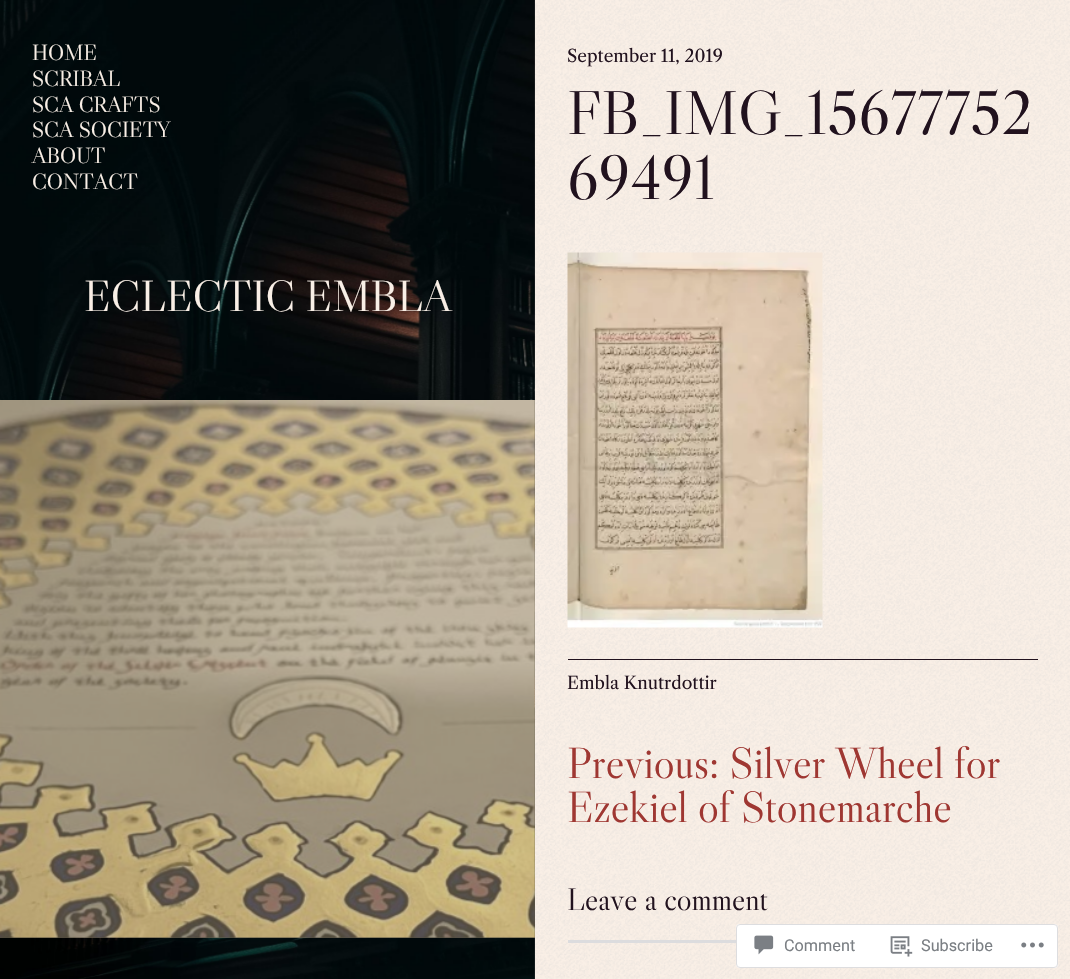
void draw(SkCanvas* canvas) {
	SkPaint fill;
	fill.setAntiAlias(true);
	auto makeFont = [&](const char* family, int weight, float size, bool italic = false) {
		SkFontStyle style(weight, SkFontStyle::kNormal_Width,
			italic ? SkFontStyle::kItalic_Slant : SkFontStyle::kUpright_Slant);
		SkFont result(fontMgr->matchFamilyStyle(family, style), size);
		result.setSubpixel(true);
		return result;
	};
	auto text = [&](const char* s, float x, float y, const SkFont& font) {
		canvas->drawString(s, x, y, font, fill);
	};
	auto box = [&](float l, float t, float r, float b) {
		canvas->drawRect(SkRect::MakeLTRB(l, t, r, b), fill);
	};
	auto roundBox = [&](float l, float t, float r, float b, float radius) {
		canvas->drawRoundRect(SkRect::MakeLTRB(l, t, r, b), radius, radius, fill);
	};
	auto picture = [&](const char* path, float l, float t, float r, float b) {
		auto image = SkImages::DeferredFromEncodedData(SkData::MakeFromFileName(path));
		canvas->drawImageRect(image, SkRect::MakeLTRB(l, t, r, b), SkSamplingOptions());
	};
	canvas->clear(0xFFF9EFE6);
	picture("image0.png", 0, 0, 535, 979);
	picture("image1.png", 0, 400, 535, 938);
	fill.setColor(0x80A29478);
	box(0, 400, 535, 938);
	picture("image2.png", 535, 0, 1070, 979);
	picture("image3.png", 567, 252, 823, 628);
	fill.setColor(0xFF21121E);
	box(568, 659, 1038, 660);
	fill.setColor(0xFFDCDCDE);
	box(568, 940, 1038, 943);
	fill.setColor(0xFAFFFFFF);
	roundBox(736, 924, 1058, 968, 4);
	fill.setStyle(SkPaint::kStroke_Style);
	fill.setStrokeWidth(1);
	fill.setColor(0xFADCDCDE);
	canvas->drawRoundRect(SkRect::MakeLTRB(736.5f, 924.5f, 1057.5f, 967.5f), 3.5f, 3.5f, fill);
	picture("image4.png", 754, 935, 774, 955);
	picture("image5.png", 890, 936, 913, 957);
	picture("image6.png", 1021, 942, 1044, 948);
	auto font1 = makeFont("Libre Caslon Display", 400, 22);
	fill.setStyle(SkPaint::kFill_Style);
	fill.setColor(0xFFF9EFE6);
	text("HOME", 32, 60, font1);
	text("SCRIBAL", 32, 86, font1);
	text("SCA CRAFTS", 32, 112, font1);
	text("SCA SOCIETY", 32, 137, font1);
	text("ABOUT", 32, 163, font1);
	text("CONTACT", 32, 189, font1);
	auto font2 = makeFont("Libre Caslon Display", 400, 43.75f);
	text("ECLECTIC EMBLA", 84, 311, font2);
	auto font3 = makeFont("Libre Caslon Text", 400, 17.25f);
	fill.setColor(0xFF21121E);
	text("September 11, 2019", 567, 62, font3);
	auto font4 = makeFont("Libre Caslon Display", 400, 62);
	text("FB_IMG_15677752", 567, 134, font4);
	text("69491", 567, 199, font4);
	text("Embla Knutrdottir", 567, 689, font3);
	fill.setColor(0xFF9F3732);
	text("Previous: Silver Wheel for", 567, 778, font2);
	text("Ezekiel of Stonemarche", 567, 822, font2);
	auto font5 = makeFont("Libre Caslon Display", 400, 31);
	fill.setColor(0xFF21121E);
	text("Leave a comment", 567, 910, font5);
	auto font6 = makeFont("Roboto", 400, 16.25f);
	fill.setColor(0xFF7B7F84);
	text("Comment", 784, 951, font6);
	text("Subscribe", 921, 951, font6);
}
